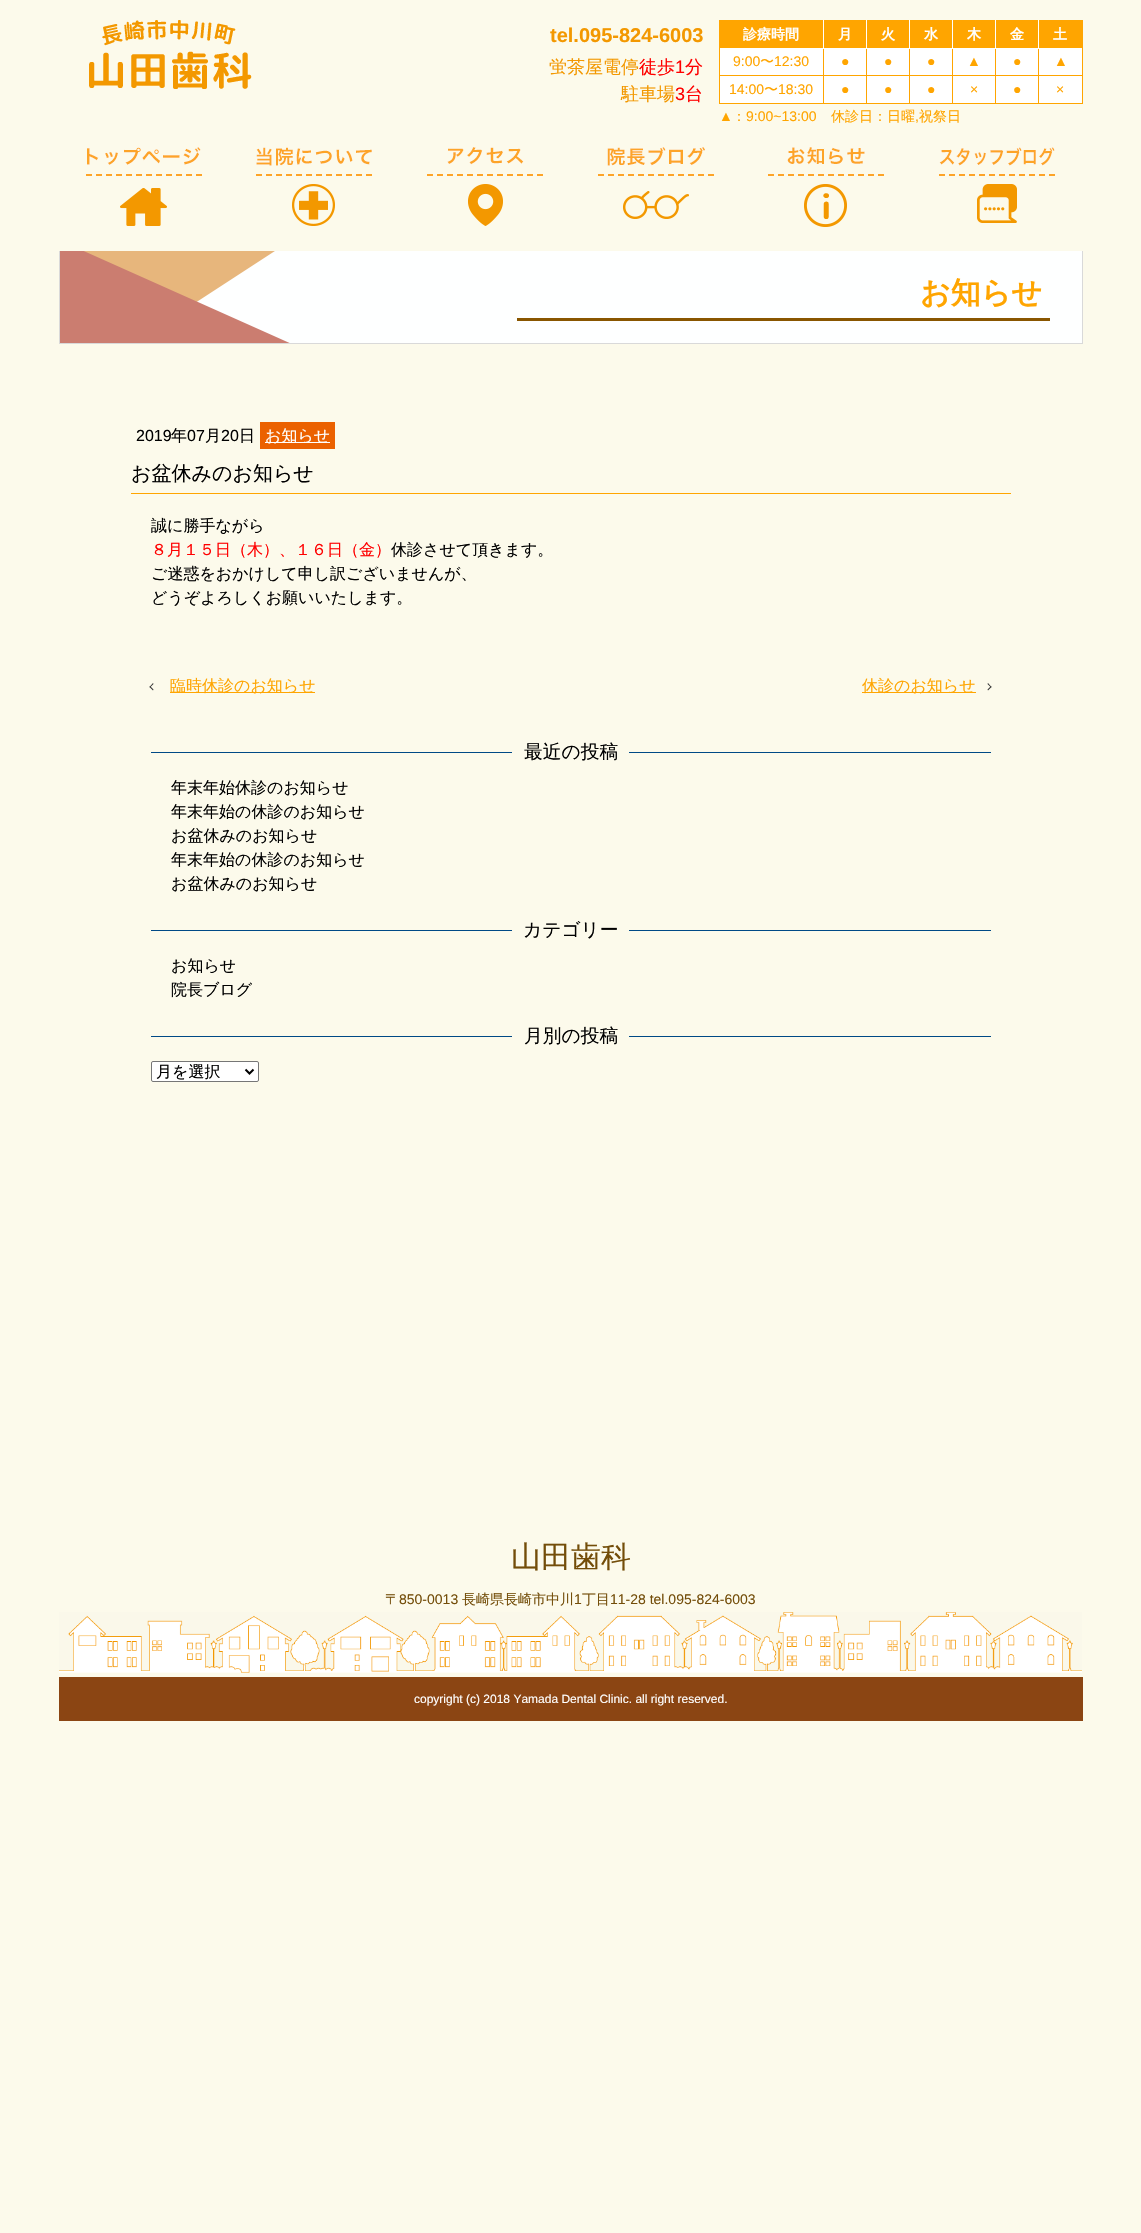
void draw(SkCanvas* canvas) {
	SkPaint fill;
	fill.setAntiAlias(true);
	auto makeFont = [&](const char* family, int weight, float size, bool italic = false) {
		SkFontStyle style(weight, SkFontStyle::kNormal_Width,
			italic ? SkFontStyle::kItalic_Slant : SkFontStyle::kUpright_Slant);
		SkFont result(fontMgr->matchFamilyStyle(family, style), size);
		result.setSubpixel(true);
		return result;
	};
	auto text = [&](const char* s, float x, float y, const SkFont& font) {
		canvas->drawString(s, x, y, font, fill);
	};
	auto box = [&](float l, float t, float r, float b) {
		canvas->drawRect(SkRect::MakeLTRB(l, t, r, b), fill);
	};
	auto picture = [&](const char* path, float l, float t, float r, float b) {
		auto image = SkImages::DeferredFromEncodedData(SkData::MakeFromFileName(path));
		canvas->drawImageRect(image, SkRect::MakeLTRB(l, t, r, b), SkSamplingOptions());
	};
	canvas->clear(0xFFFCFAEB);
	picture("image0.png", 89, 20, 252, 89);
	fill.setColor(0xFFFFFFFF);
	box(720, 48, 1082, 103);
	fill.setColor(0xFFFFA500);
	box(719, 20, 1083, 21);
	box(719, 20, 720, 104);
	box(720, 21, 1082, 48);
	box(1082, 20, 1083, 104);
	box(1038, 103, 1083, 104);
	box(1038, 75, 1039, 104);
	box(1038, 75, 1083, 76);
	box(1038, 48, 1039, 76);
	box(995, 103, 1039, 104);
	box(995, 75, 996, 104);
	box(995, 75, 1039, 76);
	box(995, 48, 996, 76);
	box(952, 103, 996, 104);
	box(952, 75, 953, 104);
	box(952, 75, 996, 76);
	box(952, 48, 953, 76);
	box(909, 103, 953, 104);
	box(909, 75, 910, 104);
	box(909, 75, 953, 76);
	box(909, 48, 910, 76);
	box(866, 103, 910, 104);
	box(866, 75, 867, 104);
	box(866, 75, 910, 76);
	box(866, 48, 867, 76);
	box(823, 103, 867, 104);
	box(823, 75, 824, 104);
	box(823, 75, 867, 76);
	box(823, 48, 824, 76);
	fill.setColor(0xFFFFFFFF);
	box(823, 20, 824, 49);
	box(866, 20, 867, 49);
	box(909, 20, 910, 49);
	box(952, 20, 953, 49);
	box(995, 20, 996, 49);
	box(1038, 20, 1039, 49);
	fill.setColor(0xFFFFA500);
	box(719, 75, 824, 76);
	box(719, 103, 824, 104);
	picture("image1.png", 86, 147, 202, 226);
	picture("image2.png", 256, 147, 372, 226);
	picture("image3.png", 427, 147, 543, 226);
	picture("image4.png", 598, 147, 714, 219);
	picture("image5.png", 768, 147, 884, 227);
	picture("image6.png", 939, 147, 1055, 223);
	picture("image7.png", 59, 251, 1083, 344);
	fill.setColor(0xFFEB6100);
	box(260, 422, 335, 449);
	fill.setColor(0xFFFFFFFF);
	box(265, 442, 330, 443);
	fill.setColor(0xFFFFA500);
	box(131, 493, 1011, 494);
	fill.setColor(0xFF333333);
	canvas->drawPath(SkPathBuilder().moveTo(153, 690.5f).lineTo(149.5f, 687).lineTo(150, 686).lineTo(153.5f, 689.5f).close().detach(), fill);
	canvas->drawPath(SkPathBuilder().moveTo(150, 687.5f).lineTo(149.5f, 687).lineTo(153, 683).lineTo(153.5f, 684).close().detach(), fill);
	fill.setColor(0xFFFFA500);
	box(170, 692, 315, 693);
	box(862, 692, 976, 693);
	fill.setColor(0xFF333333);
	canvas->drawPath(SkPathBuilder().moveTo(988, 683).lineTo(991.5f, 687).lineTo(991, 687.5f).lineTo(987.5f, 684).close().detach(), fill);
	canvas->drawPath(SkPathBuilder().moveTo(991, 686).lineTo(991.5f, 687).lineTo(988, 690.5f).lineTo(987.5f, 689.5f).close().detach(), fill);
	fill.setColor(0xFF004986);
	box(151, 752, 512, 753);
	box(629, 752, 991, 753);
	box(151, 930, 512, 931);
	box(629, 930, 991, 931);
	box(151, 1036, 512, 1037);
	box(629, 1036, 991, 1037);
	fill.setColor(0xFFFFFFFF);
	canvas->drawRoundRect(SkRect::MakeLTRB(151.5f, 1061.5f, 258.5f, 1081.5f), 1.5f, 1.5f, fill);
	fill.setStyle(SkPaint::kStroke_Style);
	fill.setStrokeWidth(1);
	fill.setColor(0xFF767676);
	canvas->drawRoundRect(SkRect::MakeLTRB(151.5f, 1061.5f, 258.5f, 1081.5f), 1.5f, 1.5f, fill);
	fill.setStrokeWidth(2);
	fill.setColor(0xFF000000);
	canvas->drawPath(SkPathBuilder().moveTo(245.5f, 1069.5f).lineTo(249.5f, 1073.5f).lineTo(253.5f, 1069.5f).detach(), fill);
	picture("image8.png", 59, 1612, 1082, 1673);
	fill.setStyle(SkPaint::kFill_Style);
	fill.setColor(0xFF8B4513);
	box(59, 1677, 1083, 1721);
	auto font1 = makeFont("Liberation Sans", 700, 20);
	fill.setColor(0xFFF39800);
	text("tel.095-824-6003", 550, 42, font1);
	auto font2 = makeFont("WenQuanYi Zen Hei", 500, 18);
	text("蛍茶屋電停", 549, 73, font2);
	fill.setColor(0xFFFF0000);
	text("徒歩", 639, 73, font2);
	auto font3 = makeFont("Liberation Sans", 400, 18);
	text("1", 675, 73, font3);
	text("分", 685, 73, font2);
	fill.setColor(0xFFF39800);
	text("駐車場", 621, 100, font2);
	fill.setColor(0xFFFF0000);
	text("3", 675, 100, font3);
	text("台", 685, 100, font2);
	auto font4 = makeFont("WenQuanYi Zen Hei", 700, 14);
	fill.setColor(0xFFFFFFFF);
	text("診療時間", 743, 39, font4);
	text("月", 838, 39, font4);
	text("火", 881, 39, font4);
	text("水", 924, 39, font4);
	text("木", 967, 39, font4);
	text("金", 1010, 39, font4);
	text("土", 1053, 39, font4);
	auto font5 = makeFont("Liberation Sans", 400, 14);
	fill.setColor(0xFFFFA500);
	text("9:00", 733, 66, font5);
	auto font6 = makeFont("WenQuanYi Zen Hei", 500, 14);
	text("〜", 760, 66, font6);
	text("12:30", 774, 66, font5);
	text("●", 841, 66, font5);
	text("●", 884, 66, font5);
	text("●", 927, 66, font5);
	text("▲", 967, 66, font5);
	text("●", 1013, 66, font5);
	text("▲", 1054, 66, font5);
	text("14:00", 729, 94, font5);
	text("〜", 764, 94, font6);
	text("18:30", 778, 94, font5);
	text("●", 841, 94, font5);
	text("●", 884, 94, font5);
	text("●", 927, 94, font5);
	text("×", 970, 94, font5);
	text("●", 1013, 94, font5);
	text("×", 1056, 94, font5);
	text("▲", 719, 121, font5);
	text("：", 732, 121, font6);
	text("9:00~13:00", 746, 121, font5);
	text("休診日：日曜", 831, 121, font6);
	text(",", 915, 121, font5);
	text("祝祭日", 919, 121, font6);
	auto font7 = makeFont("WenQuanYi Zen Hei", 700, 30);
	text("お知らせ", 920, 303, font7);
	auto font8 = makeFont("Liberation Sans", 400, 16);
	fill.setColor(0xFF000000);
	text("2019", 136, 441, font8);
	auto font9 = makeFont("WenQuanYi Zen Hei", 500, 16);
	text("年", 171, 441, font9);
	text("07", 187, 441, font8);
	text("月", 205, 441, font9);
	text("20", 221, 441, font8);
	text("日", 239, 441, font9);
	fill.setColor(0xFFFFFFFF);
	text("お知らせ", 265, 441, font9);
	auto font10 = makeFont("WenQuanYi Zen Hei", 500, 20);
	fill.setColor(0xFF000000);
	text("お盆休みのお知らせ", 131, 480, font10);
	text("誠に勝手ながら", 151, 531, font9);
	fill.setColor(0xFFFF0000);
	text("８月１５日（木）、１６日（金）", 151, 555, font9);
	fill.setColor(0xFF000000);
	text("休診させて頂きます。", 391, 555, font9);
	text("ご迷惑をおかけして申し訳ございませんが、", 151, 579, font9);
	text("どうぞよろしくお願いいたします。", 151, 603, font9);
	fill.setColor(0xFFFFA500);
	text("臨時休診のお知らせ", 170, 691, font9);
	text("休診のお知らせ", 862, 691, font9);
	auto font11 = makeFont("WenQuanYi Zen Hei", 500, 18.75f);
	fill.setColor(0xFF000000);
	text("最近の投稿", 524, 758, font11);
	text("年末年始休診のお知らせ", 171, 793, font9);
	text("年末年始の休診のお知らせ", 171, 817, font9);
	text("お盆休みのお知らせ", 171, 841, font9);
	text("年末年始の休診のお知らせ", 171, 865, font9);
	text("お盆休みのお知らせ", 171, 889, font9);
	text("カテゴリー", 523, 936, font11);
	text("お知らせ", 171, 971, font9);
	text("院長ブログ", 171, 995, font9);
	text("月別の投稿", 524, 1042, font11);
	text("月を選択", 156, 1077, font9);
	auto font12 = makeFont("WenQuanYi Zen Hei", 500, 30);
	fill.setColor(0xFF734D09);
	text("山田歯科", 511, 1567, font12);
	text("〒", 385, 1604, font6);
	text("850-0013", 399, 1604, font5);
	text("長崎県長崎市中川", 462, 1604, font6);
	text("1", 574, 1604, font5);
	text("丁目", 582, 1604, font6);
	text("11-28 tel.095-824-6003", 610, 1604, font5);
	auto font13 = makeFont("Liberation Sans", 400, 12);
	fill.setColor(0xFFFFFFFF);
	text("copyright (c) 2018 Yamada Dental Clinic. all right reserved.", 414, 1703, font13);
}
